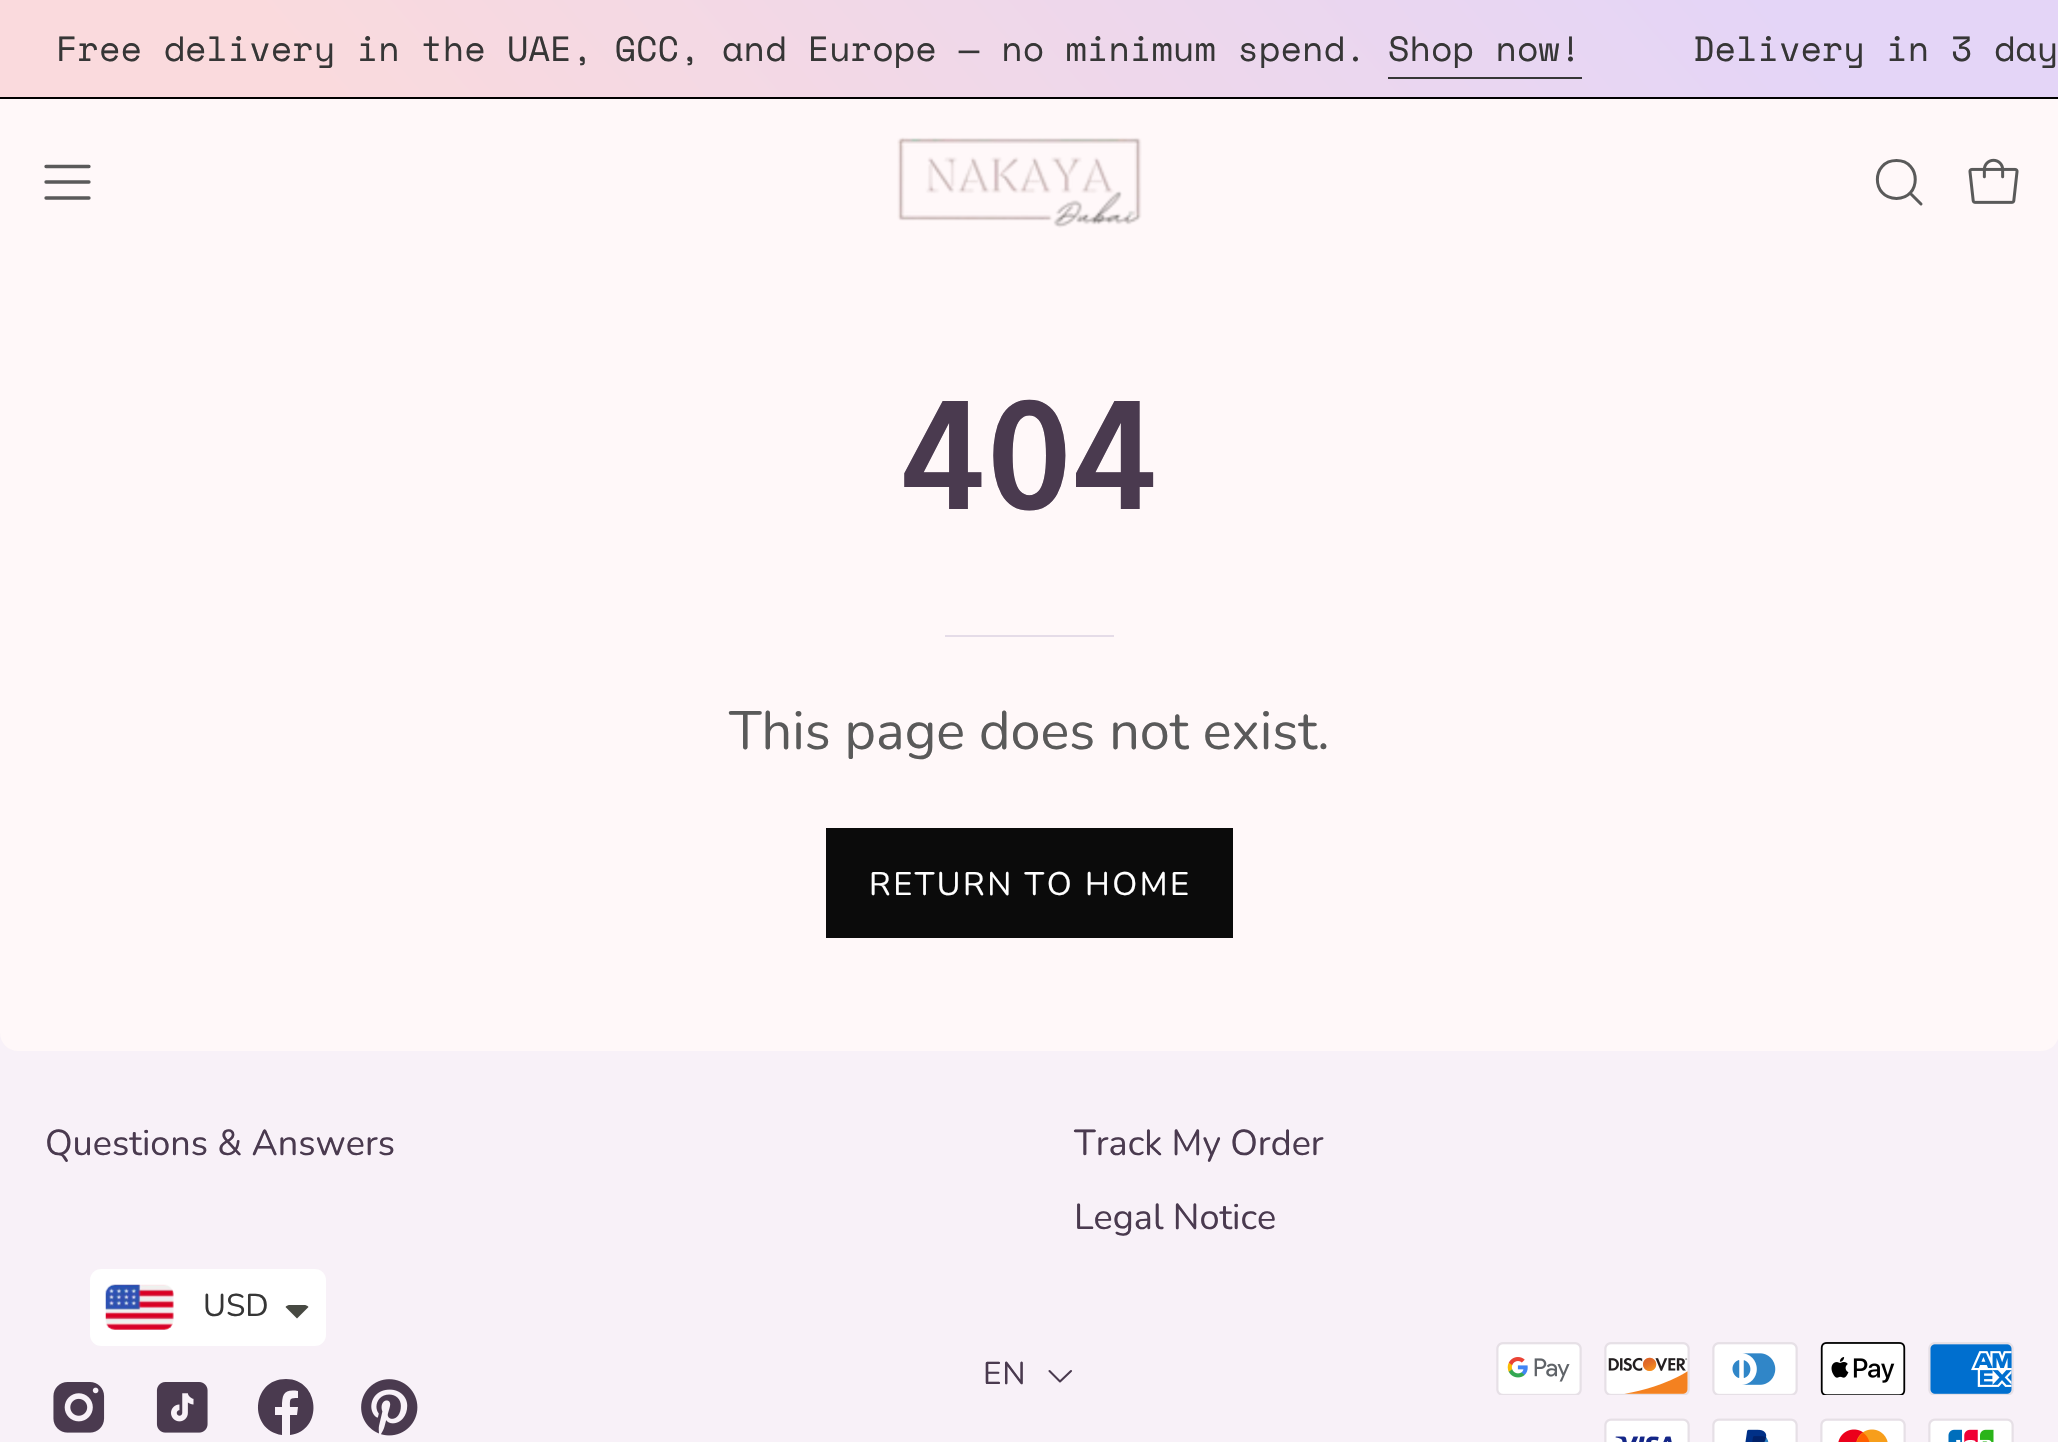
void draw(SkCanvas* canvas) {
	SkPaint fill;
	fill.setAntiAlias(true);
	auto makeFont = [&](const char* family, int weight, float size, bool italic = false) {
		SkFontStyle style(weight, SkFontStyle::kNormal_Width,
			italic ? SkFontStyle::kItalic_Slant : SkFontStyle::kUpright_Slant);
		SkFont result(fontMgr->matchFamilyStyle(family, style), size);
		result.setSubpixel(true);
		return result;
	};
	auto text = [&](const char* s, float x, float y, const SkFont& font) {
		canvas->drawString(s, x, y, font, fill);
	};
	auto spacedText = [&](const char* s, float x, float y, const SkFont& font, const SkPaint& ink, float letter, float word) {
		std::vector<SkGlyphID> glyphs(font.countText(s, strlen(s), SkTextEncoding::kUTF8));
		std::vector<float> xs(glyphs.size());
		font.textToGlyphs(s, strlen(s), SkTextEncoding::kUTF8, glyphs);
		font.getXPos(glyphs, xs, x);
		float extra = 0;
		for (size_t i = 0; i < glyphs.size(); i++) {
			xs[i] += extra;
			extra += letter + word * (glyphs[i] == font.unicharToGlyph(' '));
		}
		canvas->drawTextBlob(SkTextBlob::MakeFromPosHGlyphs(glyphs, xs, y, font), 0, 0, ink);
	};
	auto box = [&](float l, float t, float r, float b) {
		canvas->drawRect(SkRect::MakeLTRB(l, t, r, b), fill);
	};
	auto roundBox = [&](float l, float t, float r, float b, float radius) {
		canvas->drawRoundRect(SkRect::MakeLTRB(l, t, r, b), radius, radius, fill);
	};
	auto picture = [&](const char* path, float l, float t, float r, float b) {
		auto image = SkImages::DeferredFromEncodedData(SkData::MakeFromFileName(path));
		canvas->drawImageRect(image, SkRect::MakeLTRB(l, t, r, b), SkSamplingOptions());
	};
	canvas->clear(0xFFF8F1F8);
	{
		const SkColor colors[] = {0xFFFADADD, 0xFFE4D5F7};
		const float stops[] = {0.15f, 0.87f};
		const SkPoint ends[] = {{419, 580}, {1640, -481}};
		fill.setShader(SkGradientShader::MakeLinear(ends, colors, stops, 2, SkTileMode::kClamp));
		fill.setAlpha(255);
	}
	box(0, 0, 2058, 97);
	fill.setShader(nullptr);
	fill.setColor(0xFF000000);
	box(0, 97, 2058, 99);
	fill.setColor(0xFF363636);
	box(1388, 77, 1582, 79);
	fill.setColor(0xFFFFF8F9);
	box(0, 99, 2058, 266);
	fill.setStyle(SkPaint::kStroke_Style);
	fill.setStrokeWidth(3.3f);
	fill.setStrokeCap(SkPaint::kRound_Cap);
	fill.setStrokeJoin(SkPaint::kRound_Join);
	fill.setColor(0xFF5A5A5A);
	canvas->drawPath(SkPathBuilder().moveTo(46, 182).lineTo(89, 182).moveTo(46, 166.5f).lineTo(89, 166.5f).moveTo(46, 198).lineTo(89, 198).detach(), fill);
	picture("image0.png", 897, 137, 1142, 228);
	fill.setStrokeWidth(3);
	canvas->drawPath(SkPathBuilder().moveTo(1896.5f, 198.5f).cubicTo(1921.5f, 198.5f, 1921.5f, 160.5f, 1896.5f, 160.5f).cubicTo(1871, 160.5f, 1871, 198.5f, 1896.5f, 198.5f).close().moveTo(1910, 193).lineTo(1921, 204).detach(), fill);
	picture("image1.png", 1968, 158, 2019, 204);
	fill.setStyle(SkPaint::kFill_Style);
	fill.setColor(0xFFFFF8F9);
	canvas->drawPath(SkPathBuilder().moveTo(0, 266).lineTo(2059, 266).lineTo(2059, 1033).cubicTo(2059, 1043, 2051, 1051, 2041, 1051).lineTo(18, 1051).cubicTo(8, 1051, 0, 1043, 0, 1033).close().detach(), fill);
	fill.setColor(0xFFE5DCE8);
	box(945, 635, 1114, 637);
	fill.setColor(0xFF0B0B0B);
	box(826, 828, 1233, 938);
	fill.setStyle(SkPaint::kStroke_Style);
	fill.setStrokeWidth(2.1f);
	fill.setColor(0xFF4A3A4F);
	canvas->drawPath(SkPathBuilder().moveTo(1071, 1371).lineTo(1060, 1381.5f).lineTo(1049.5f, 1371).detach(), fill);
	picture("image2.png", 1496, 1342, 1582, 1395);
	picture("image3.png", 1604, 1342, 1690, 1395);
	picture("image4.png", 1712, 1342, 1798, 1395);
	picture("image5.png", 1820, 1342, 1906, 1395);
	picture("image6.png", 1928, 1342, 2014, 1395);
	picture("image7.png", 1604, 1418, 1690, 1442);
	picture("image8.png", 1712, 1418, 1798, 1442);
	picture("image9.png", 1820, 1418, 1906, 1442);
	picture("image10.png", 1928, 1418, 2014, 1442);
	picture("image11.png", 53, 1382, 105, 1433);
	picture("image12.png", 156, 1382, 208, 1433);
	fill.setStyle(SkPaint::kFill_Style);
	canvas->drawPath(SkPathBuilder().moveTo(286, 1379).cubicTo(251, 1379, 248, 1430, 282, 1435).lineTo(282, 1415).lineTo(275, 1415).lineTo(275, 1407).lineTo(282, 1407).cubicTo(282, 1394, 284, 1389, 298, 1391).lineTo(298, 1398).cubicTo(289, 1398, 290, 1399, 290, 1407).lineTo(298, 1407).lineTo(297, 1415).lineTo(290, 1415).lineTo(290, 1435).cubicTo(324, 1431, 320, 1379, 286, 1379).close().detach(), fill);
	picture("image13.png", 361, 1379, 418, 1436);
	fill.setColor(0xFFFFFFFF);
	roundBox(90, 1269, 326, 1346, 11);
	picture("image14.png", 105, 1284, 174, 1330);
	fill.setColor(0xFF474942);
	canvas->drawPath(SkPathBuilder().moveTo(290, 1305).cubicTo(288.5f, 1305, 286.5f, 1305.5f, 285.5f, 1307).lineTo(297, 1318.5f).lineTo(308.5f, 1307).cubicTo(307.5f, 1305.5f, 305.5f, 1305, 304, 1305).close().detach(), fill);
	auto font1 = makeFont("Space Mono", 400, 35.1f);
	fill.setColor(0xFF363636);
	text("Free delivery in the UAE, GCC, and Europe — no minimum spend.", 56, 61, font1);
	text("Shop now!", 1388, 61, font1);
	text("Delivery in 3 day", 1693, 61, font1);
	auto font2 = makeFont("Epilogue", 600, 146);
	fill.setColor(0xFF4A3A4F);
	text("404", 901, 509, font2);
	auto font3 = makeFont("Nunito", 400, 54);
	fill.setColor(0xFF5A5A5A);
	text("This page does not exist.", 729, 749, font3);
	auto font4 = makeFont("Nunito", 400, 32.5f);
	fill.setColor(0xFFFFFFFF);
	spacedText("RETURN TO HOME", 869, 895, font4, fill, 2.5f, 0);
	auto font5 = makeFont("Nunito", 400, 36);
	fill.setColor(0xFF4A3A4F);
	text("Questions & Answers", 45, 1155, font5);
	text("Track My Order", 1074, 1155, font5);
	text("Legal Notice", 1074, 1229, font5);
	auto font6 = makeFont("Nunito", 400, 31.5f);
	spacedText("EN", 983, 1384, font6, fill, 1, 0);
	fill.setColor(0xFF363636);
	text("USD", 203, 1316, font6);
}
